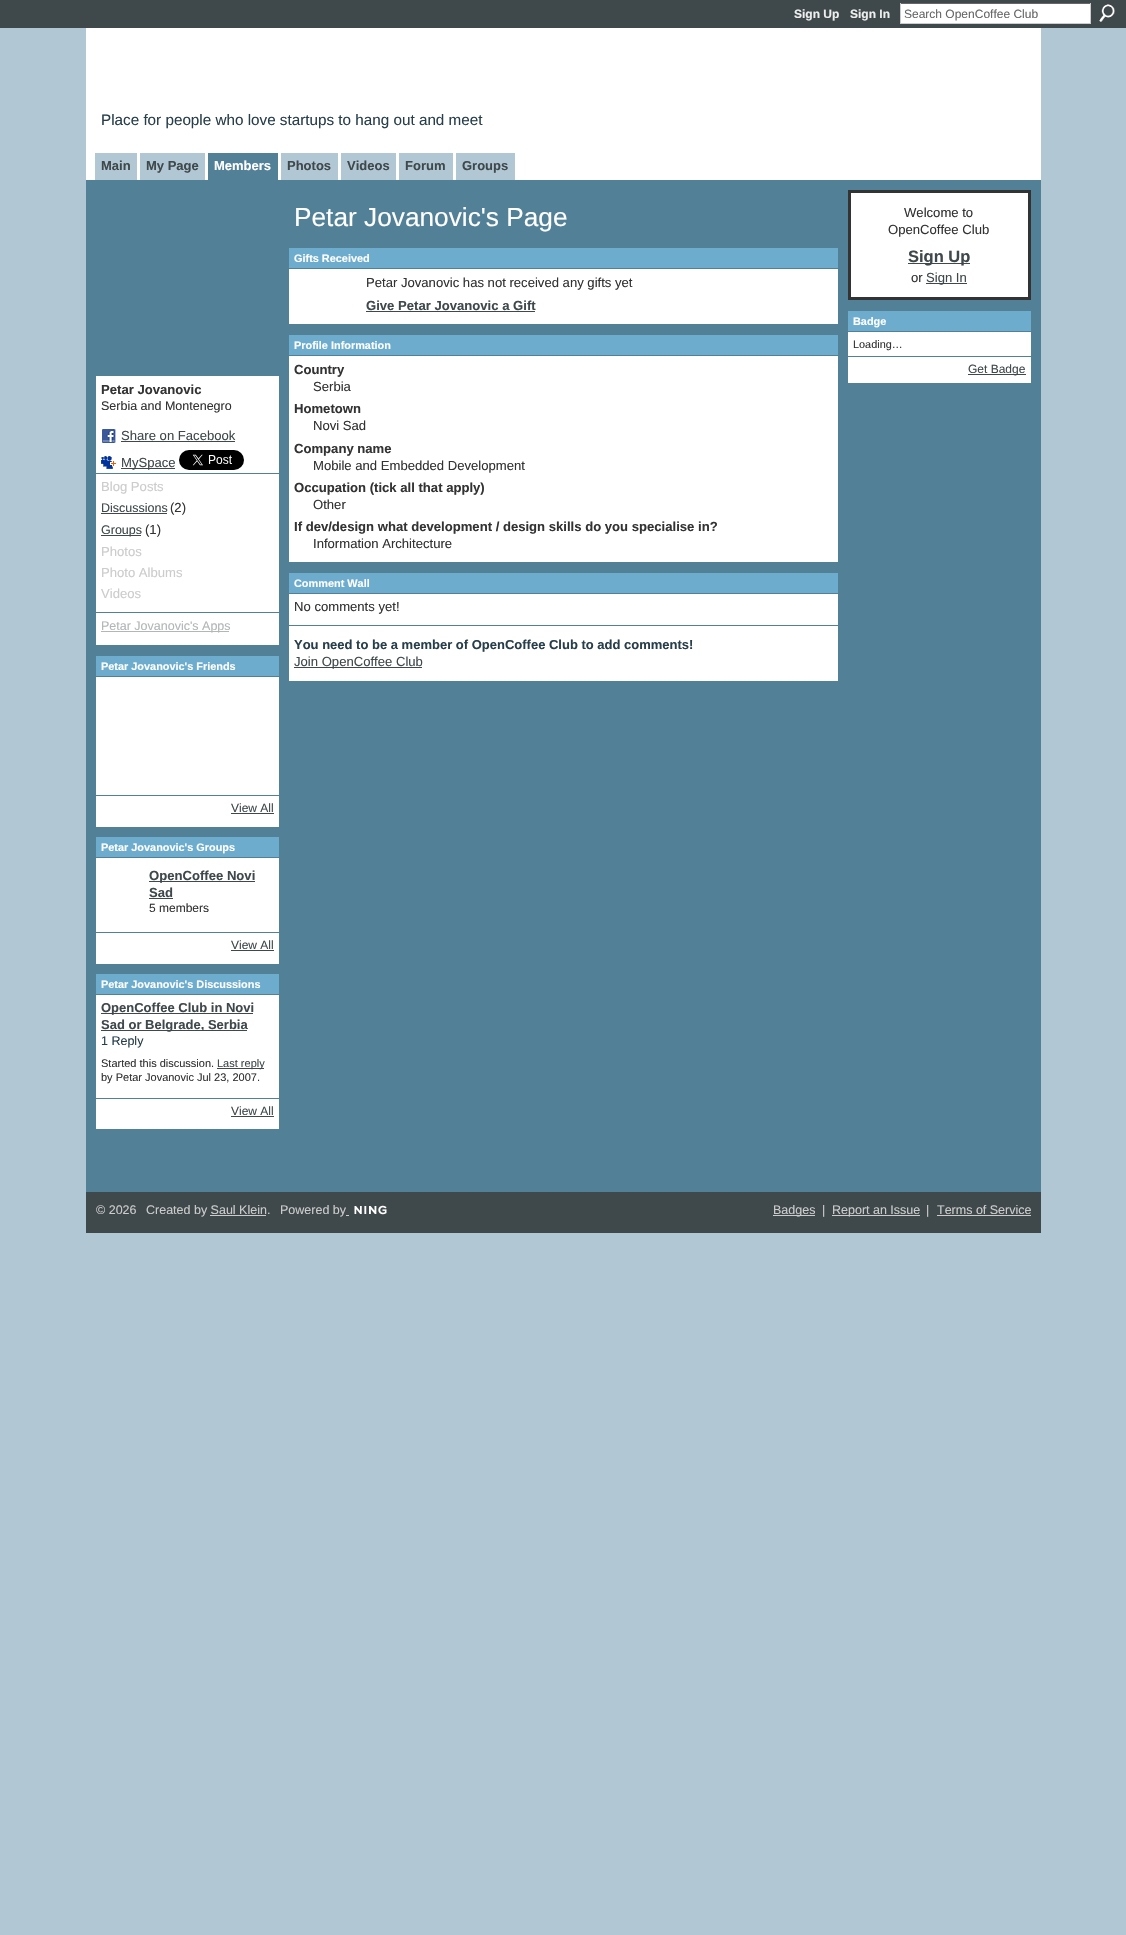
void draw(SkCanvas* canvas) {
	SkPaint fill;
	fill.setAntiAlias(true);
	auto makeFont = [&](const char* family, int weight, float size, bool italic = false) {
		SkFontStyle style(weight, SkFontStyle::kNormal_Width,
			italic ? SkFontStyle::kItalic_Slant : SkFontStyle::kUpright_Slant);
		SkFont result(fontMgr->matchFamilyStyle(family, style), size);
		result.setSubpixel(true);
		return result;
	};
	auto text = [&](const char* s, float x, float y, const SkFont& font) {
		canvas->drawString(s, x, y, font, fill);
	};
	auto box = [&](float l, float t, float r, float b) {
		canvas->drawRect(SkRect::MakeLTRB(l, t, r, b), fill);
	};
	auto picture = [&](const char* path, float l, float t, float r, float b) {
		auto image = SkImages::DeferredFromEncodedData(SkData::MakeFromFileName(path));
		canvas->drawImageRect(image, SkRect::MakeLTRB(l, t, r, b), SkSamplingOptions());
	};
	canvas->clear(0xFFB1C8D4);
	fill.setColor(0xFF3F484B);
	box(0, 0, 1126, 28);
	fill.setColor(0xFFFFFFFF);
	box(901, 4, 1090, 23);
	fill.setColor(0xFF666666);
	box(900, 3, 1091, 4);
	fill.setColor(0xFFCCCCCC);
	box(1090, 3, 1091, 24);
	box(900, 23, 1091, 24);
	box(900, 3, 901, 24);
	picture("image0.png", 1099, 4, 1115, 22);
	fill.setColor(0xFFFFFFFF);
	box(86, 28, 1041, 180);
	fill.setColor(0xFFB1C8D4);
	box(95, 153, 137, 180);
	box(140, 153, 205, 180);
	fill.setColor(0xFF528097);
	box(208, 153, 278, 180);
	fill.setColor(0xFFB1C8D4);
	box(281, 153, 338, 180);
	box(341, 153, 396, 180);
	box(399, 153, 453, 180);
	box(456, 153, 515, 180);
	fill.setColor(0xFF528097);
	box(86, 180, 1041, 1192);
	fill.setColor(0xFFFFFFFF);
	box(96, 376, 279, 473);
	picture("image1.png", 102, 429, 116, 443);
	fill.setColor(0xFF3F484B);
	box(121, 441, 235, 442);
	picture("image2.png", 101, 456, 116, 469);
	box(121, 468, 175, 469);
	picture("image3.png", 179, 450, 244, 470);
	fill.setColor(0xFFFFFFFF);
	box(96, 474, 279, 612);
	fill.setColor(0xFF3F484B);
	box(101, 513, 167, 514);
	box(101, 535, 141, 536);
	fill.setColor(0xFFFFFFFF);
	box(96, 613, 279, 645);
	fill.setColor(0xFFB2B6B7);
	box(101, 631, 229, 632);
	fill.setColor(0xFF6DACCC);
	box(96, 656, 279, 676);
	fill.setColor(0xFFFFFFFF);
	box(96, 677, 279, 795);
	box(96, 796, 279, 827);
	fill.setColor(0xFF3F484B);
	box(231, 813, 274, 814);
	fill.setColor(0xFF6DACCC);
	box(96, 837, 279, 857);
	fill.setColor(0xFFFFFFFF);
	box(96, 858, 279, 932);
	fill.setColor(0xFF3F484B);
	box(149, 881, 255, 882);
	box(149, 898, 173, 899);
	fill.setColor(0xFFFFFFFF);
	box(96, 933, 279, 964);
	fill.setColor(0xFF3F484B);
	box(231, 950, 274, 951);
	fill.setColor(0xFF6DACCC);
	box(96, 974, 279, 994);
	fill.setColor(0xFFFFFFFF);
	box(96, 995, 279, 1098);
	fill.setColor(0xFF3F484B);
	box(101, 1013, 253, 1014);
	box(101, 1030, 247, 1031);
	box(217, 1068, 264, 1069);
	fill.setColor(0xFFFFFFFF);
	box(96, 1099, 279, 1129);
	fill.setColor(0xFF3F484B);
	box(231, 1116, 274, 1117);
	fill.setColor(0xFF6DACCC);
	box(289, 248, 838, 268);
	fill.setColor(0xFFFFFFFF);
	box(289, 269, 838, 324);
	fill.setColor(0xFF3F484B);
	box(366, 311, 535, 312);
	fill.setColor(0xFF6DACCC);
	box(289, 335, 838, 355);
	fill.setColor(0xFFFFFFFF);
	box(289, 356, 838, 562);
	fill.setColor(0xFF6DACCC);
	box(289, 573, 838, 593);
	fill.setColor(0xFFFFFFFF);
	box(289, 594, 838, 625);
	box(289, 626, 838, 681);
	fill.setColor(0xFF3F484B);
	box(294, 667, 422, 668);
	fill.setColor(0xFFFFFFFF);
	canvas->drawRect(SkRect::MakeLTRB(849.5f, 191.5f, 1029.5f, 298.5f), fill);
	fill.setStyle(SkPaint::kStroke_Style);
	fill.setStrokeWidth(3);
	fill.setColor(0xFF333333);
	canvas->drawRect(SkRect::MakeLTRB(849.5f, 191.5f, 1029.5f, 298.5f), fill);
	fill.setStyle(SkPaint::kFill_Style);
	fill.setColor(0xFF3F484B);
	box(908, 263, 970, 264);
	box(926, 283, 967, 284);
	fill.setColor(0xFF6DACCC);
	box(848, 311, 1031, 331);
	fill.setColor(0xFFFFFFFF);
	box(848, 332, 1031, 356);
	box(848, 357, 1031, 383);
	fill.setColor(0xFF3F484B);
	box(968, 374, 1026, 375);
	box(86, 1192, 1041, 1233);
	picture("image4.png", 354, 1205, 387, 1215);
	fill.setColor(0xFFCCCCCC);
	box(210, 1215, 266, 1216);
	box(346, 1215, 349, 1216);
	box(773, 1215, 815, 1216);
	box(832, 1215, 920, 1216);
	box(937, 1215, 1031, 1216);
	auto font1 = makeFont("Liberation Sans", 700, 12);
	fill.setColor(0xFFEEEEEE);
	text("Sign Up", 794, 18, font1);
	text("Sign In", 850, 18, font1);
	auto font2 = makeFont("Liberation Sans", 400, 12);
	fill.setColor(0xFF666666);
	text("Search OpenCoffee Club", 904, 18, font2);
	auto font3 = makeFont("Liberation Sans", 400, 15.25f);
	fill.setColor(0xFF283F4B);
	text("Place for people who love startups to hang out and meet", 101, 125, font3);
	auto font4 = makeFont("Liberation Sans", 700, 13);
	fill.setColor(0xFF3F484B);
	text("Main", 101, 170, font4);
	text("My Page", 146, 170, font4);
	fill.setColor(0xFFFFFFFF);
	text("Members", 214, 170, font4);
	fill.setColor(0xFF3F484B);
	text("Photos", 287, 170, font4);
	text("Videos", 347, 170, font4);
	text("Forum", 405, 170, font4);
	text("Groups", 462, 170, font4);
	auto font5 = makeFont("Liberation Sans", 700, 13.1f);
	fill.setColor(0xFF333333);
	text("Petar Jovanovic", 101, 394, font5);
	auto font6 = makeFont("Liberation Sans", 400, 12.5f);
	text("Serbia and Montenegro", 101, 410, font6);
	auto font7 = makeFont("Liberation Sans", 400, 13.1f);
	fill.setColor(0xFF3F484B);
	text("Share on Facebook", 121, 440, font7);
	text("MySpace", 121, 467, font7);
	fill.setColor(0xFFCCCCCC);
	text("Blog Posts", 101, 491, font7);
	fill.setColor(0xFF3F484B);
	text("Discussions", 101, 512, font6);
	fill.setColor(0xFF333333);
	text("(2)", 170, 512, font7);
	fill.setColor(0xFF3F484B);
	text("Groups", 101, 534, font6);
	fill.setColor(0xFF333333);
	text("(1)", 145, 534, font7);
	fill.setColor(0xFFCCCCCC);
	text("Photos", 101, 556, font7);
	text("Photo Albums", 101, 577, font7);
	text("Videos", 101, 598, font7);
	fill.setColor(0xFFB2B6B7);
	text("Petar Jovanovic's Apps", 101, 630, font6);
	auto font8 = makeFont("Liberation Sans", 700, 10.9f);
	fill.setColor(0xFFFFFFFF);
	text("Petar Jovanovic's Friends", 101, 670, font8);
	fill.setColor(0xFF3F484B);
	text("View All", 231, 812, font2);
	fill.setColor(0xFFFFFFFF);
	text("Petar Jovanovic's Groups", 101, 851, font8);
	fill.setColor(0xFF3F484B);
	text("OpenCoffee Novi", 149, 880, font5);
	text("Sad", 149, 897, font5);
	fill.setColor(0xFF333333);
	text("5 members", 149, 912, font2);
	fill.setColor(0xFF3F484B);
	text("View All", 231, 949, font2);
	fill.setColor(0xFFFFFFFF);
	text("Petar Jovanovic's Discussions", 101, 988, font8);
	fill.setColor(0xFF3F484B);
	text("OpenCoffee Club in Novi", 101, 1012, font4);
	text("Sad or Belgrade, Serbia", 101, 1029, font4);
	fill.setColor(0xFF283F4B);
	text("1 Reply", 101, 1045, font6);
	auto font9 = makeFont("Liberation Sans", 400, 11);
	fill.setColor(0xFF333333);
	text("Started this discussion.", 101, 1067, font9);
	fill.setColor(0xFF3F484B);
	text("Last reply", 217, 1067, font9);
	fill.setColor(0xFF333333);
	text("by Petar Jovanovic Jul 23, 2007.", 101, 1081, font9);
	fill.setColor(0xFF3F484B);
	text("View All", 231, 1115, font2);
	auto font10 = makeFont("Liberation Sans", 400, 26.25f);
	fill.setColor(0xFFFFFFFF);
	text("Petar Jovanovic's Page", 294, 226, font10);
	text("Gifts Received", 294, 262, font8);
	fill.setColor(0xFF333333);
	text("Petar Jovanovic has not received any gifts yet", 366, 287, font7);
	fill.setColor(0xFF3F484B);
	text("Give Petar Jovanovic a Gift", 366, 310, font5);
	fill.setColor(0xFFFFFFFF);
	text("Profile Information", 294, 349, font8);
	fill.setColor(0xFF333333);
	text("Country", 294, 374, font5);
	text("Serbia", 313, 391, font7);
	text("Hometown", 294, 413, font5);
	text("Novi Sad", 313, 430, font7);
	text("Company name", 294, 453, font5);
	text("Mobile and Embedded Development", 313, 470, font7);
	text("Occupation (tick all that apply)", 294, 492, font5);
	text("Other", 313, 509, font7);
	text("If dev/design what development / design skills do you specialise in?", 294, 531, font5);
	text("Information Architecture", 313, 548, font7);
	fill.setColor(0xFFFFFFFF);
	text("Comment Wall", 294, 587, font8);
	fill.setColor(0xFF333333);
	text("No comments yet!", 294, 611, font7);
	fill.setColor(0xFF283F4B);
	text("You need to be a member of OpenCoffee Club to add comments!", 294, 649, font4);
	fill.setColor(0xFF3F484B);
	text("Join OpenCoffee Club", 294, 666, font7);
	fill.setColor(0xFF333333);
	text("Welcome to", 904, 217, font7);
	text("OpenCoffee Club", 888, 234, font7);
	auto font11 = makeFont("Liberation Sans", 700, 16.5f);
	fill.setColor(0xFF3F484B);
	text("Sign Up", 908, 262, font11);
	fill.setColor(0xFF333333);
	text("or", 911, 282, font7);
	fill.setColor(0xFF3F484B);
	text("Sign In", 926, 282, font7);
	fill.setColor(0xFFFFFFFF);
	text("Badge", 853, 325, font8);
	auto font12 = makeFont("Liberation Sans", 400, 10.9f);
	fill.setColor(0xFF333333);
	text("Loading…", 853, 348, font12);
	fill.setColor(0xFF3F484B);
	text("Get Badge", 968, 373, font2);
	fill.setColor(0xFFCCCCCC);
	text("© 2026", 96, 1214, font6);
	text("Created by Saul Klein.", 146, 1214, font6);
	text("Powered by", 280, 1214, font6);
	text("Badges", 773, 1214, font6);
	text("|", 822, 1214, font6);
	text("Report an Issue", 832, 1214, font6);
	text("|", 926, 1214, font6);
	text("Terms of Service", 937, 1214, font6);
}
